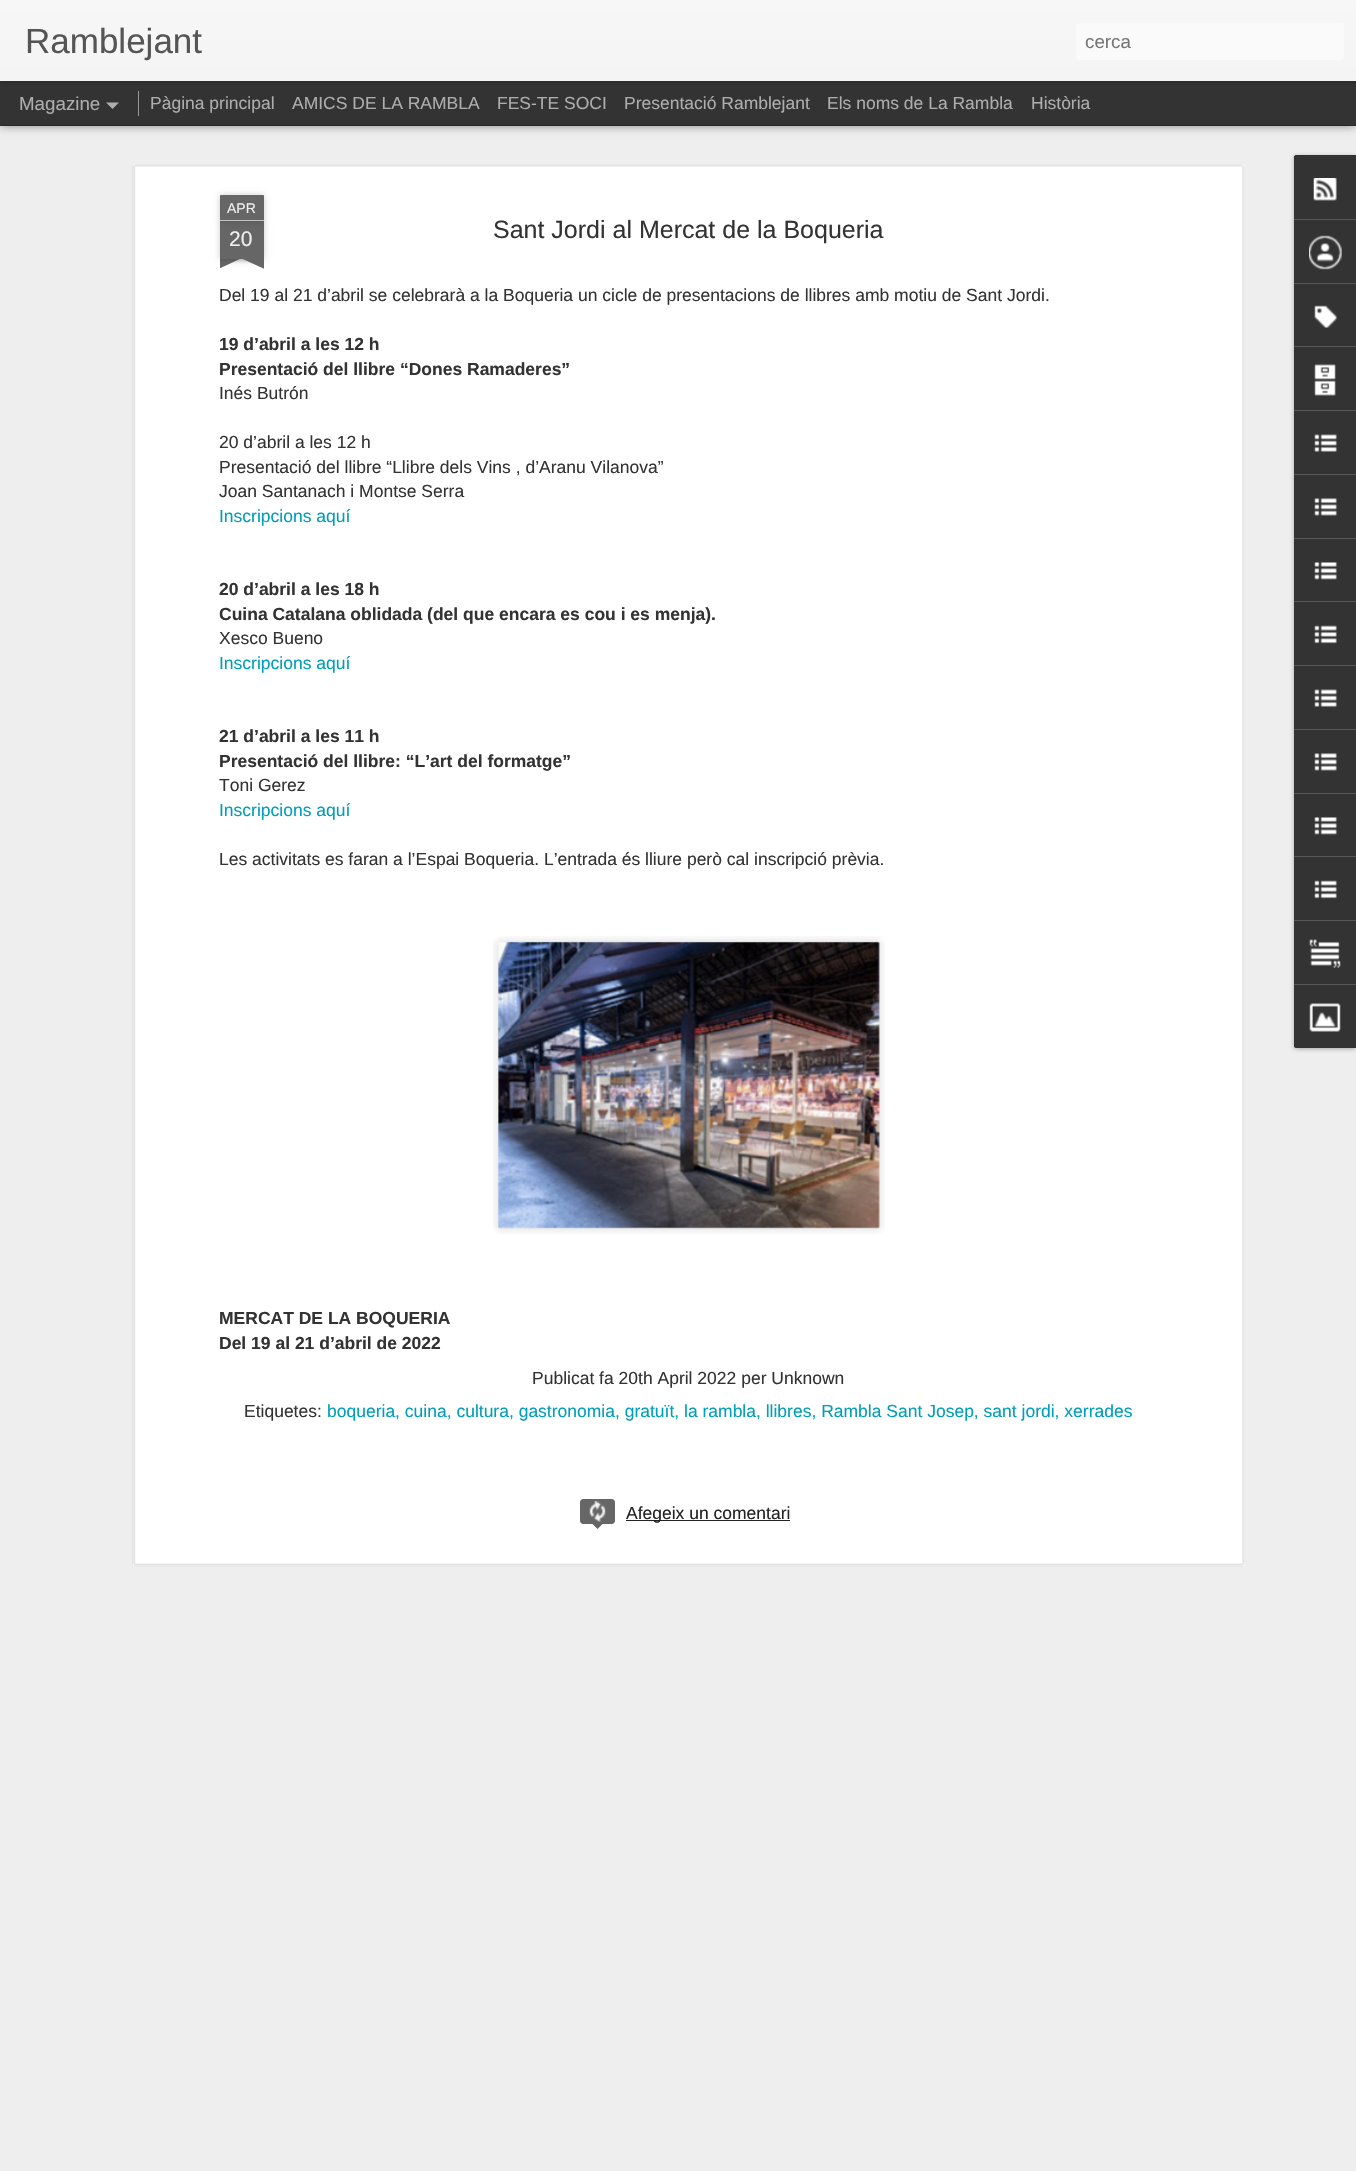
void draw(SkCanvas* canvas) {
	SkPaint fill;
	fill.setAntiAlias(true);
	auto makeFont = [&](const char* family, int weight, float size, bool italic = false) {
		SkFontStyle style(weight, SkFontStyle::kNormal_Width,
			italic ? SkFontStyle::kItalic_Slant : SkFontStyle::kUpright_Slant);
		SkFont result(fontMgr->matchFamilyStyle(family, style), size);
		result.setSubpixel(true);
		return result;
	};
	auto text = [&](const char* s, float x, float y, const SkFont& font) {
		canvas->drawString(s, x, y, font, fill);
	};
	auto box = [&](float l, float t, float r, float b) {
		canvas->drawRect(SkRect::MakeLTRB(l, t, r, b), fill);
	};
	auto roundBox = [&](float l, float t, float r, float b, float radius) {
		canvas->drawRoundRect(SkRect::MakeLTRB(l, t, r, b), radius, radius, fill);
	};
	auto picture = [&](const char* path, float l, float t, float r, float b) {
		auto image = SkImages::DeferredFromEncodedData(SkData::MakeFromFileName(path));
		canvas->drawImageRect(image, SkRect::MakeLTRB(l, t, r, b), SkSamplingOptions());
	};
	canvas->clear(0xFF333333);
	fill.setColor(0xFFEEEEEE);
	box(0, 126, 1356, 2171);
	fill.setColor(0x80000000);
	fill.setMaskFilter(SkMaskFilter::MakeBlur(kNormal_SkBlurStyle, 5));
	canvas->drawRect(SkRect::MakeLTRB(0, 81, 1356, 125), fill);
	fill.setMaskFilter(nullptr);
	fill.setColor(0xFF333333);
	box(0, 81, 1356, 125);
	fill.setColor(0x4D000000);
	fill.setMaskFilter(SkMaskFilter::MakeBlur(kNormal_SkBlurStyle, 3));
	canvas->drawRect(SkRect::MakeLTRB(0, 0, 1356, 81), fill);
	fill.setMaskFilter(nullptr);
	{
		const SkColor colors[] = {0xFFF7F7F7, 0xFFF4F4F4};
		const float stops[] = {0, 1};
		const SkPoint ends[] = {{0, 0}, {0, 81}};
		fill.setShader(SkGradientShader::MakeLinear(ends, colors, stops, 2, SkTileMode::kClamp));
		fill.setAlpha(255);
	}
	box(0, 0, 1356, 81);
	fill.setShader(nullptr);
	fill.setColor(0xFFFAFAFA);
	roundBox(1076, 23, 1344, 60, 4);
	fill.setColor(0xFFADADAD);
	canvas->drawPath(SkPathBuilder().moveTo(106, 102.5f).lineTo(119, 102.5f).lineTo(112.5f, 109).close().detach(), fill);
	fill.setColor(0xFF999999);
	box(138, 91, 139, 116);
	fill.setColor(0xFFFFFFFF);
	box(133, 164, 1245, 1566);
	picture("image0.png", 132, 164, 1245, 1567);
	fill.setColor(0x33000000);
	fill.setMaskFilter(SkMaskFilter::MakeBlur(kNormal_SkBlurStyle, 3));
	canvas->drawRect(SkRect::MakeLTRB(220, 221, 264, 259), fill);
	fill.setMaskFilter(nullptr);
	fill.setColor(0xFF666666);
	box(220, 221, 264, 259);
	fill.setColor(0x33000000);
	fill.setMaskFilter(SkMaskFilter::MakeBlur(kNormal_SkBlurStyle, 3));
	canvas->drawRoundRect(SkRect::MakeLTRB(220, 195, 264, 221), 1, 1, fill);
	fill.setMaskFilter(nullptr);
	fill.setColor(0xFF666666);
	canvas->drawPath(SkPathBuilder().moveTo(221, 195).lineTo(263, 195).cubicTo(263.5f, 195, 264, 195.5f, 264, 196).lineTo(264, 221).lineTo(220, 221).lineTo(220, 196).cubicTo(220, 195.5f, 220.5f, 195, 221, 195).close().detach(), fill);
	fill.setColor(0xFFC2C2C2);
	box(220, 220, 264, 221);
	canvas->save();
	canvas->clipRect(SkRect::MakeLTRB(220, 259, 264, 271));
	fill.setColor(0x33000000);
	fill.setMaskFilter(SkMaskFilter::MakeBlur(kNormal_SkBlurStyle, 3));
	canvas->drawRect(SkRect::MakeLTRB(209, 246, 271, 259), fill);
	fill.setMaskFilter(nullptr);
	canvas->restore();
	canvas->save();
	canvas->clipRect(SkRect::MakeLTRB(220, 259, 264, 271));
	fill.setColor(0xFF666666);
	canvas->drawPath(SkPathBuilder().moveTo(208, 260).lineTo(265, 234).lineTo(270, 245).lineTo(214, 271).close().detach(), fill);
	canvas->restore();
	canvas->save();
	canvas->clipRect(SkRect::MakeLTRB(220, 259, 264, 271));
	fill.setColor(0x33000000);
	fill.setMaskFilter(SkMaskFilter::MakeBlur(kNormal_SkBlurStyle, 3));
	canvas->drawRect(SkRect::MakeLTRB(213, 246, 275, 259), fill);
	fill.setMaskFilter(nullptr);
	canvas->restore();
	canvas->save();
	canvas->clipRect(SkRect::MakeLTRB(220, 259, 264, 271));
	fill.setColor(0xFF666666);
	canvas->drawPath(SkPathBuilder().moveTo(217, 234).lineTo(274, 260).lineTo(269, 271).lineTo(212, 245).close().detach(), fill);
	canvas->restore();
	picture("image1.png", 493, 936, 885, 1234);
	picture("image2.png", 498, 941, 880, 1229);
	roundBox(580, 1499, 615, 1524, 4);
	picture("image3.png", 589, 1500, 606, 1522);
	fill.setStyle(SkPaint::kStroke_Style);
	fill.setStrokeWidth(1);
	canvas->drawRoundRect(SkRect::MakeLTRB(580.5f, 1499.5f, 614.5f, 1523.5f), 3.5f, 3.5f, fill);
	fill.setStyle(SkPaint::kFill_Style);
	canvas->drawPath(SkPathBuilder().moveTo(591, 1522.5f).lineTo(604, 1522.5f).lineTo(597.5f, 1529).close().detach(), fill);
	fill.setColor(0xFF222222);
	box(626, 1520, 790, 1521);
	fill.setColor(0x4D000000);
	fill.setMaskFilter(SkMaskFilter::MakeBlur(kNormal_SkBlurStyle, 2));
	canvas->drawRoundRect(SkRect::MakeLTRB(1294, 156, 1356, 1049), 2.5f, 2.5f, fill);
	fill.setMaskFilter(nullptr);
	fill.setColor(0xFF333333);
	canvas->drawPath(SkPathBuilder().moveTo(1296.5f, 155).lineTo(1356, 155).lineTo(1356, 1048).lineTo(1296.5f, 1048).cubicTo(1295, 1048, 1294, 1047, 1294, 1045.5f).lineTo(1294, 157.5f).cubicTo(1294, 156, 1295, 155, 1296.5f, 155).close().detach(), fill);
	canvas->drawPath(SkPathBuilder().moveTo(1296.5f, 155).lineTo(1356, 155).lineTo(1356, 219).lineTo(1294, 219).lineTo(1294, 157.5f).cubicTo(1294, 156, 1295, 155, 1296.5f, 155).close().detach(), fill);
	picture("image4.png", 1313, 178, 1337, 201);
	fill.setColor(0xFF585858);
	box(1294, 219, 1356, 220);
	picture("image5.png", 1309, 235, 1342, 270);
	box(1294, 283, 1356, 284);
	picture("image6.png", 1314, 305, 1337, 328);
	box(1294, 346, 1356, 347);
	picture("image7.png", 1314, 364, 1336, 396);
	box(1294, 410, 1356, 411);
	picture("image8.png", 1314, 434, 1337, 452);
	box(1294, 474, 1356, 475);
	picture("image9.png", 1314, 498, 1337, 516);
	box(1294, 538, 1356, 539);
	picture("image10.png", 1314, 562, 1337, 580);
	box(1294, 601, 1356, 602);
	picture("image11.png", 1314, 625, 1337, 644);
	box(1294, 665, 1356, 666);
	picture("image8.png", 1314, 689, 1337, 707);
	box(1294, 729, 1356, 730);
	picture("image9.png", 1314, 753, 1337, 771);
	box(1294, 793, 1356, 794);
	picture("image10.png", 1314, 817, 1337, 835);
	box(1294, 856, 1356, 857);
	picture("image11.png", 1314, 880, 1337, 899);
	box(1294, 920, 1356, 921);
	picture("image12.png", 1309, 939, 1341, 968);
	fill.setColor(0xFF333333);
	canvas->drawPath(SkPathBuilder().moveTo(1294, 984).lineTo(1356, 984).lineTo(1356, 1048).lineTo(1296.5f, 1048).cubicTo(1295, 1048, 1294, 1047, 1294, 1045.5f).close().detach(), fill);
	fill.setColor(0xFF585858);
	box(1294, 984, 1356, 985);
	picture("image13.png", 1309, 1003, 1341, 1032);
	auto font1 = makeFont("Liberation Sans", 400, 35);
	fill.setColor(0xFF555555);
	text("Ramblejant", 25, 53, font1);
	auto font2 = makeFont("Liberation Sans", 400, 18.75f);
	fill.setColor(0xFF757575);
	text("cerca", 1085, 48, font2);
	fill.setColor(0xFFADADAD);
	text("Magazine", 19, 110, font2);
	auto font3 = makeFont("Liberation Sans", 400, 17.5f);
	text("Pàgina principal", 150, 109, font3);
	text("AMICS DE LA RAMBLA", 292, 109, font3);
	text("FES-TE SOCI", 497, 109, font3);
	text("Presentació Ramblejant", 624, 109, font3);
	text("Els noms de La Rambla", 827, 109, font3);
	text("Història", 1031, 109, font3);
	auto font4 = makeFont("Liberation Sans", 400, 14);
	fill.setColor(0xFFEEEEEE);
	text("APR", 227, 213, font4);
	auto font5 = makeFont("Liberation Sans", 400, 21);
	text("20", 229, 246, font5);
	auto font6 = makeFont("Liberation Sans", 400, 25);
	fill.setColor(0xFF333333);
	text("Sant Jordi al Mercat de la Boqueria", 493, 238, font6);
	text("Del 19 al 21 d’abril se celebrarà a la Boqueria un cicle de presentacions de llibres amb motiu de Sant Jordi.", 219, 301, font3);
	auto font7 = makeFont("Liberation Sans", 700, 17.5f);
	text("19 d’abril a les 12 h", 219, 350, font7);
	text("Presentació del llibre “Dones Ramaderes”", 219, 375, font7);
	text("Inés Butrón", 219, 399, font3);
	text("20 d’abril a les 12 h", 219, 448, font3);
	text("Presentació del llibre “Llibre dels Vins , d’Aranu Vilanova”", 219, 473, font3);
	text("Joan Santanach i Montse Serra", 219, 497, font3);
	fill.setColor(0xFF009EB8);
	text("Inscripcions aquí", 219, 522, font3);
	fill.setColor(0xFF333333);
	text("20 d’abril a les 18 h", 219, 595, font7);
	text("Cuina Catalana oblidada (del que encara es cou i es menja).", 219, 620, font7);
	text("Xesco Bueno", 219, 644, font3);
	fill.setColor(0xFF009EB8);
	text("Inscripcions aquí", 219, 669, font3);
	fill.setColor(0xFF333333);
	text("21 d’abril a les 11 h", 219, 742, font7);
	text("Presentació del llibre: “L’art del formatge”", 219, 767, font7);
	text("Toni Gerez", 219, 791, font3);
	fill.setColor(0xFF009EB8);
	text("Inscripcions aquí", 219, 816, font3);
	fill.setColor(0xFF333333);
	text("Les activitats es faran a l’Espai Boqueria. L’entrada és lliure però cal inscripció prèvia.", 219, 865, font3);
	text("MERCAT DE LA BOQUERIA", 219, 1324, font7);
	text("Del 19 al 21 d’abril de 2022", 219, 1349, font7);
	text("Publicat fa 20th April 2022 per Unknown", 532, 1384, font3);
	text("Etiquetes:", 244, 1417, font3);
	fill.setColor(0xFF009EB8);
	text("boqueria, cuina, cultura, gastronomia, gratuït, la rambla, llibres, Rambla Sant Josep, sant jordi, xerrades", 327, 1417, font3);
	fill.setColor(0xFF222222);
	text("Afegeix un comentari", 626, 1519, font3);
}
